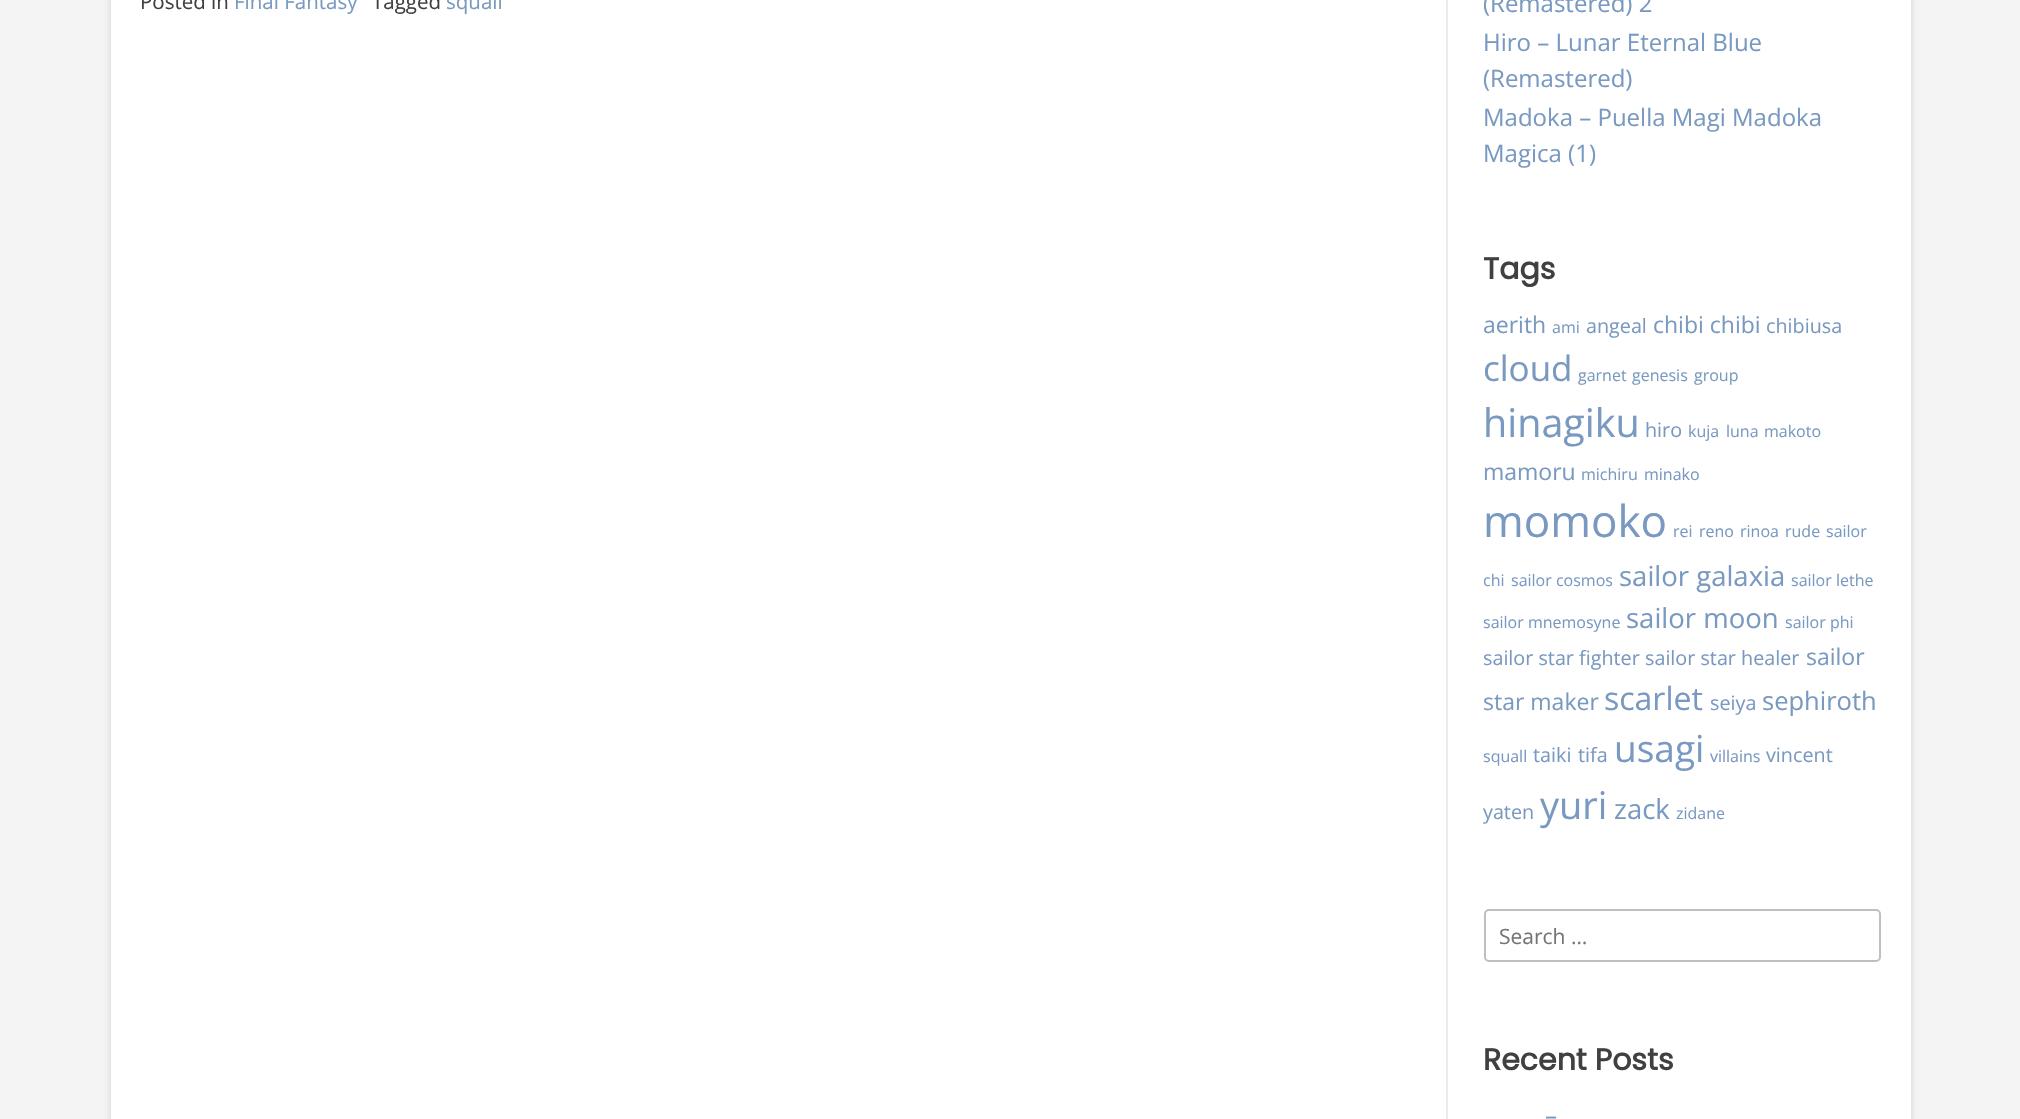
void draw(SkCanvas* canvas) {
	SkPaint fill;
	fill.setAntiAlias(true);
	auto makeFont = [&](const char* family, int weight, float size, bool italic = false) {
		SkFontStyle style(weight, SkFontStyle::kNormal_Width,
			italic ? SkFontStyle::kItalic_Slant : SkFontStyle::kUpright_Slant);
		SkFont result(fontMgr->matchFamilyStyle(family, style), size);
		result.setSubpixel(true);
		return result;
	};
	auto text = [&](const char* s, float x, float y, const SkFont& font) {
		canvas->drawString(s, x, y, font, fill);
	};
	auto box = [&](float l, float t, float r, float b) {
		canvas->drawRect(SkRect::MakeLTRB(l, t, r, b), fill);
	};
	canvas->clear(0xFFF4F4F4);
	fill.setColor(0x26000000);
	fill.setMaskFilter(SkMaskFilter::MakeBlur(kNormal_SkBlurStyle, 3));
	canvas->drawRect(SkRect::MakeLTRB(111, -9, 1911, 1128), fill);
	fill.setMaskFilter(nullptr);
	fill.setColor(0xFFFFFFFF);
	box(111, 0, 1911, 1119);
	fill.setColor(0xFFEBEBEB);
	canvas->drawPath(SkPathBuilder().moveTo(143, 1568).lineTo(1448, 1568).lineTo(1448, -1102).lineTo(1446, -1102).lineTo(1446, 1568).close().detach(), fill);
	fill.setStyle(SkPaint::kStroke_Style);
	fill.setStrokeWidth(2);
	fill.setColor(0xFFBFBFBF);
	canvas->drawRoundRect(SkRect::MakeLTRB(1485, 910, 1880, 961), 4, 4, fill);
	auto font1 = makeFont("Open Sans", 400, 20.5f);
	fill.setStyle(SkPaint::kFill_Style);
	fill.setColor(0xFF404040);
	text("Posted in", 140, 9, font1);
	fill.setColor(0xFF7999C1);
	text("Final Fantasy", 234, 9, font1);
	fill.setColor(0xFF404040);
	text("Tagged", 372, 9, font1);
	fill.setColor(0xFF7999C1);
	text("squall", 446, 9, font1);
	auto font2 = makeFont("Open Sans", 400, 24);
	text("(Remastered) 2", 1483, 12, font2);
	text("Hiro – Lunar Eternal Blue", 1483, 51, font2);
	text("(Remastered)", 1483, 87, font2);
	text("Madoka – Puella Magi Madoka", 1483, 126, font2);
	text("Magica (1)", 1483, 162, font2);
	auto font3 = makeFont("Poppins", 700, 30);
	fill.setColor(0xFF404040);
	text("Tags", 1483, 279, font3);
	auto font4 = makeFont("Open Sans", 400, 23);
	fill.setColor(0xFF7999C1);
	text("aerith", 1483, 333, font4);
	auto font5 = makeFont("Open Sans", 400, 16);
	text("ami", 1552, 333, font5);
	auto font6 = makeFont("Open Sans", 400, 19.75f);
	text("angeal", 1586, 333, font6);
	text("chibi chibi", 1653, 333, font4);
	text("chibiusa", 1766, 333, font6);
	auto font7 = makeFont("Open Sans", 400, 35);
	text("cloud", 1483, 381, font7);
	text("garnet", 1578, 381, font5);
	text("genesis", 1632, 381, font5);
	text("group", 1694, 381, font5);
	auto font8 = makeFont("Open Sans", 400, 39.5f);
	text("hinagiku", 1483, 437, font8);
	text("hiro", 1645, 437, font6);
	text("kuja", 1688, 437, font5);
	text("luna", 1726, 437, font5);
	text("makoto", 1764, 437, font5);
	text("mamoru", 1483, 480, font4);
	text("michiru", 1581, 480, font5);
	text("minako", 1644, 480, font5);
	auto font9 = makeFont("Open Sans", 400, 44);
	text("momoko", 1483, 537, font9);
	text("rei", 1673, 537, font5);
	text("reno", 1699, 537, font5);
	text("rinoa", 1740, 537, font5);
	text("rude", 1785, 537, font5);
	text("sailor", 1826, 537, font5);
	text("chi", 1483, 586, font5);
	text("sailor cosmos", 1511, 586, font5);
	auto font10 = makeFont("Open Sans", 400, 27.5f);
	text("sailor galaxia", 1619, 586, font10);
	text("sailor lethe", 1791, 586, font5);
	text("sailor mnemosyne", 1483, 628, font5);
	text("sailor moon", 1626, 628, font10);
	text("sailor phi", 1785, 628, font5);
	text("sailor star fighter", 1483, 665, font6);
	text("sailor star healer", 1645, 665, font6);
	text("sailor", 1806, 665, font4);
	text("star maker", 1483, 710, font4);
	auto font11 = makeFont("Open Sans", 400, 32);
	text("scarlet", 1604, 710, font11);
	text("seiya", 1710, 710, font6);
	auto font12 = makeFont("Open Sans", 400, 25.5f);
	text("sephiroth", 1762, 710, font12);
	text("squall", 1483, 762, font5);
	text("taiki", 1533, 762, font6);
	text("tifa", 1578, 762, font6);
	auto font13 = makeFont("Open Sans", 400, 37);
	text("usagi", 1614, 762, font13);
	text("villains", 1710, 762, font5);
	text("vincent", 1766, 762, font6);
	text("yaten", 1483, 819, font6);
	auto font14 = makeFont("Open Sans", 400, 38);
	text("yuri", 1540, 819, font14);
	text("zack", 1614, 819, font10);
	text("zidane", 1676, 819, font5);
	auto font15 = makeFont("Open Sans", 400, 21);
	fill.setColor(0xFF757575);
	text("Search …", 1499, 944, font15);
	fill.setColor(0xFF404040);
	text("Recent Posts", 1483, 1070, font3);
	fill.setColor(0xFF7999C1);
	text("–", 1545, 1124, font2);
}
